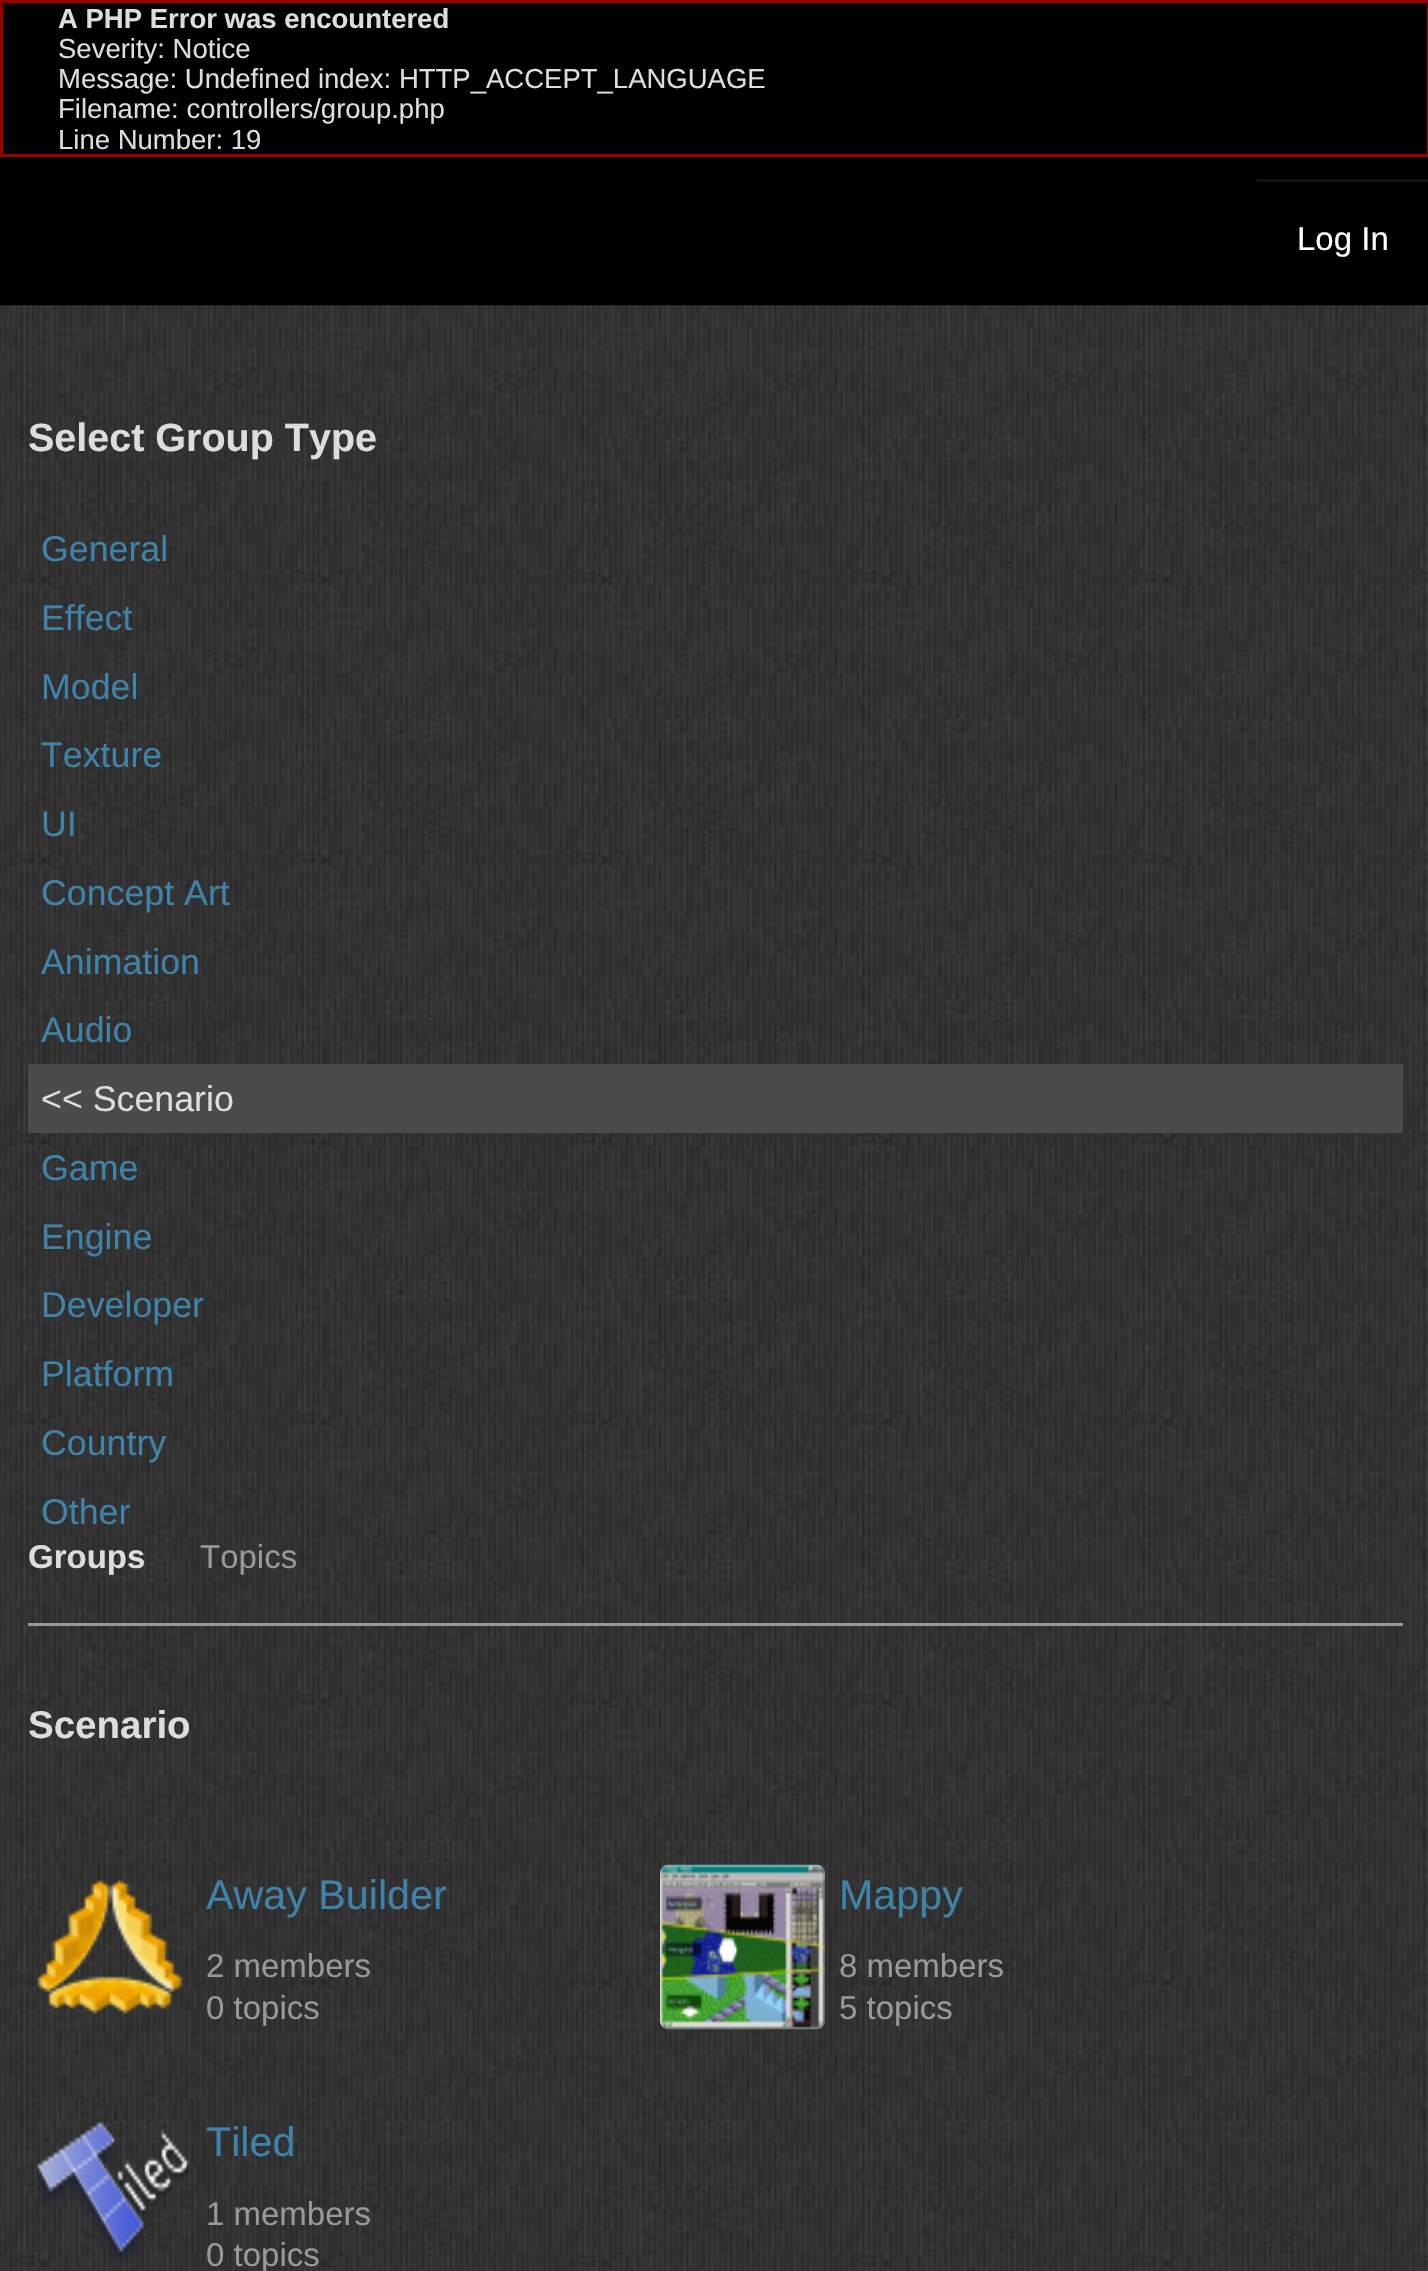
void draw(SkCanvas* canvas) {
	SkPaint fill;
	fill.setAntiAlias(true);
	auto makeFont = [&](const char* family, int weight, float size, bool italic = false) {
		SkFontStyle style(weight, SkFontStyle::kNormal_Width,
			italic ? SkFontStyle::kItalic_Slant : SkFontStyle::kUpright_Slant);
		SkFont result(fontMgr->matchFamilyStyle(family, style), size);
		result.setSubpixel(true);
		return result;
	};
	auto text = [&](const char* s, float x, float y, const SkFont& font) {
		canvas->drawString(s, x, y, font, fill);
	};
	auto box = [&](float l, float t, float r, float b) {
		canvas->drawRect(SkRect::MakeLTRB(l, t, r, b), fill);
	};
	auto picture = [&](const char* path, float l, float t, float r, float b) {
		auto image = SkImages::DeferredFromEncodedData(SkData::MakeFromFileName(path));
		canvas->drawImageRect(image, SkRect::MakeLTRB(l, t, r, b), SkSamplingOptions());
	};
	canvas->clear(0xFF000000);
	fill.setStyle(SkPaint::kStroke_Style);
	fill.setStrokeWidth(3);
	fill.setColor(0xFF990000);
	canvas->drawRect(SkRect::MakeLTRB(1.5f, 1.5f, 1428.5f, 155.5f), fill);
	fill.setStyle(SkPaint::kFill_Style);
	fill.setColor(0xFF121212);
	box(1257, 179, 1428, 182);
	picture("image0.png", 0, 305, 1428, 2271);
	fill.setColor(0xFF4B4B4B);
	box(28, 1064, 1403, 1133);
	fill.setColor(0xFF999999);
	box(28, 1623, 1403, 1626);
	picture("image1.png", 37, 1880, 183, 2014);
	picture("image2.png", 660, 1864, 825, 2030);
	picture("image3.png", 36, 2121, 190, 2263);
	auto font1 = makeFont("Liberation Sans", 700, 27.5f);
	fill.setColor(0xFFDDDDDD);
	text("A PHP Error was encountered", 58, 28, font1);
	auto font2 = makeFont("Liberation Sans", 400, 27.5f);
	text("Severity: Notice", 58, 58, font2);
	text("Message: Undefined index: HTTP_ACCEPT_LANGUAGE", 58, 88, font2);
	text("Filename: controllers/group.php", 58, 118, font2);
	text("Line Number: 19", 58, 149, font2);
	auto font3 = makeFont("Liberation Sans", 400, 33);
	fill.setColor(0xFFFFFFFF);
	text("Log In", 1297, 250, font3);
	auto font4 = makeFont("Liberation Sans", 700, 39.5f);
	fill.setColor(0xFFDDDDDD);
	text("Select Group Type", 28, 451, font4);
	auto font5 = makeFont("Liberation Sans", 400, 35.75f);
	fill.setColor(0xFF4083A9);
	text("General", 41, 561, font5);
	text("Effect", 41, 630, font5);
	text("Model", 41, 699, font5);
	text("Texture", 41, 767, font5);
	text("UI", 41, 836, font5);
	text("Concept Art", 41, 905, font5);
	text("Animation", 41, 974, font5);
	text("Audio", 41, 1042, font5);
	fill.setColor(0xFFDDDDDD);
	text("<< Scenario", 41, 1111, font5);
	fill.setColor(0xFF4083A9);
	text("Game", 41, 1180, font5);
	text("Engine", 41, 1249, font5);
	text("Developer", 41, 1317, font5);
	text("Platform", 41, 1386, font5);
	text("Country", 41, 1455, font5);
	text("Other", 41, 1524, font5);
	auto font6 = makeFont("Liberation Sans", 700, 33);
	fill.setColor(0xFFDDDDDD);
	text("Groups", 28, 1568, font6);
	fill.setColor(0xFF999999);
	text("Topics", 200, 1568, font3);
	auto font7 = makeFont("Liberation Sans", 700, 38.5f);
	fill.setColor(0xFFDDDDDD);
	text("Scenario", 28, 1738, font7);
	auto font8 = makeFont("Liberation Sans", 400, 41.25f);
	fill.setColor(0xFF4083A9);
	text("Away Builder", 206, 1909, font8);
	fill.setColor(0xFF999999);
	text("2 members", 206, 1977, font3);
	text("0 topics", 206, 2019, font3);
	fill.setColor(0xFF4083A9);
	text("Mappy", 839, 1909, font8);
	fill.setColor(0xFF999999);
	text("8 members", 839, 1977, font3);
	text("5 topics", 839, 2019, font3);
	fill.setColor(0xFF4083A9);
	text("Tiled", 206, 2156, font8);
	fill.setColor(0xFF999999);
	text("1 members", 206, 2225, font3);
	text("0 topics", 206, 2266, font3);
}
